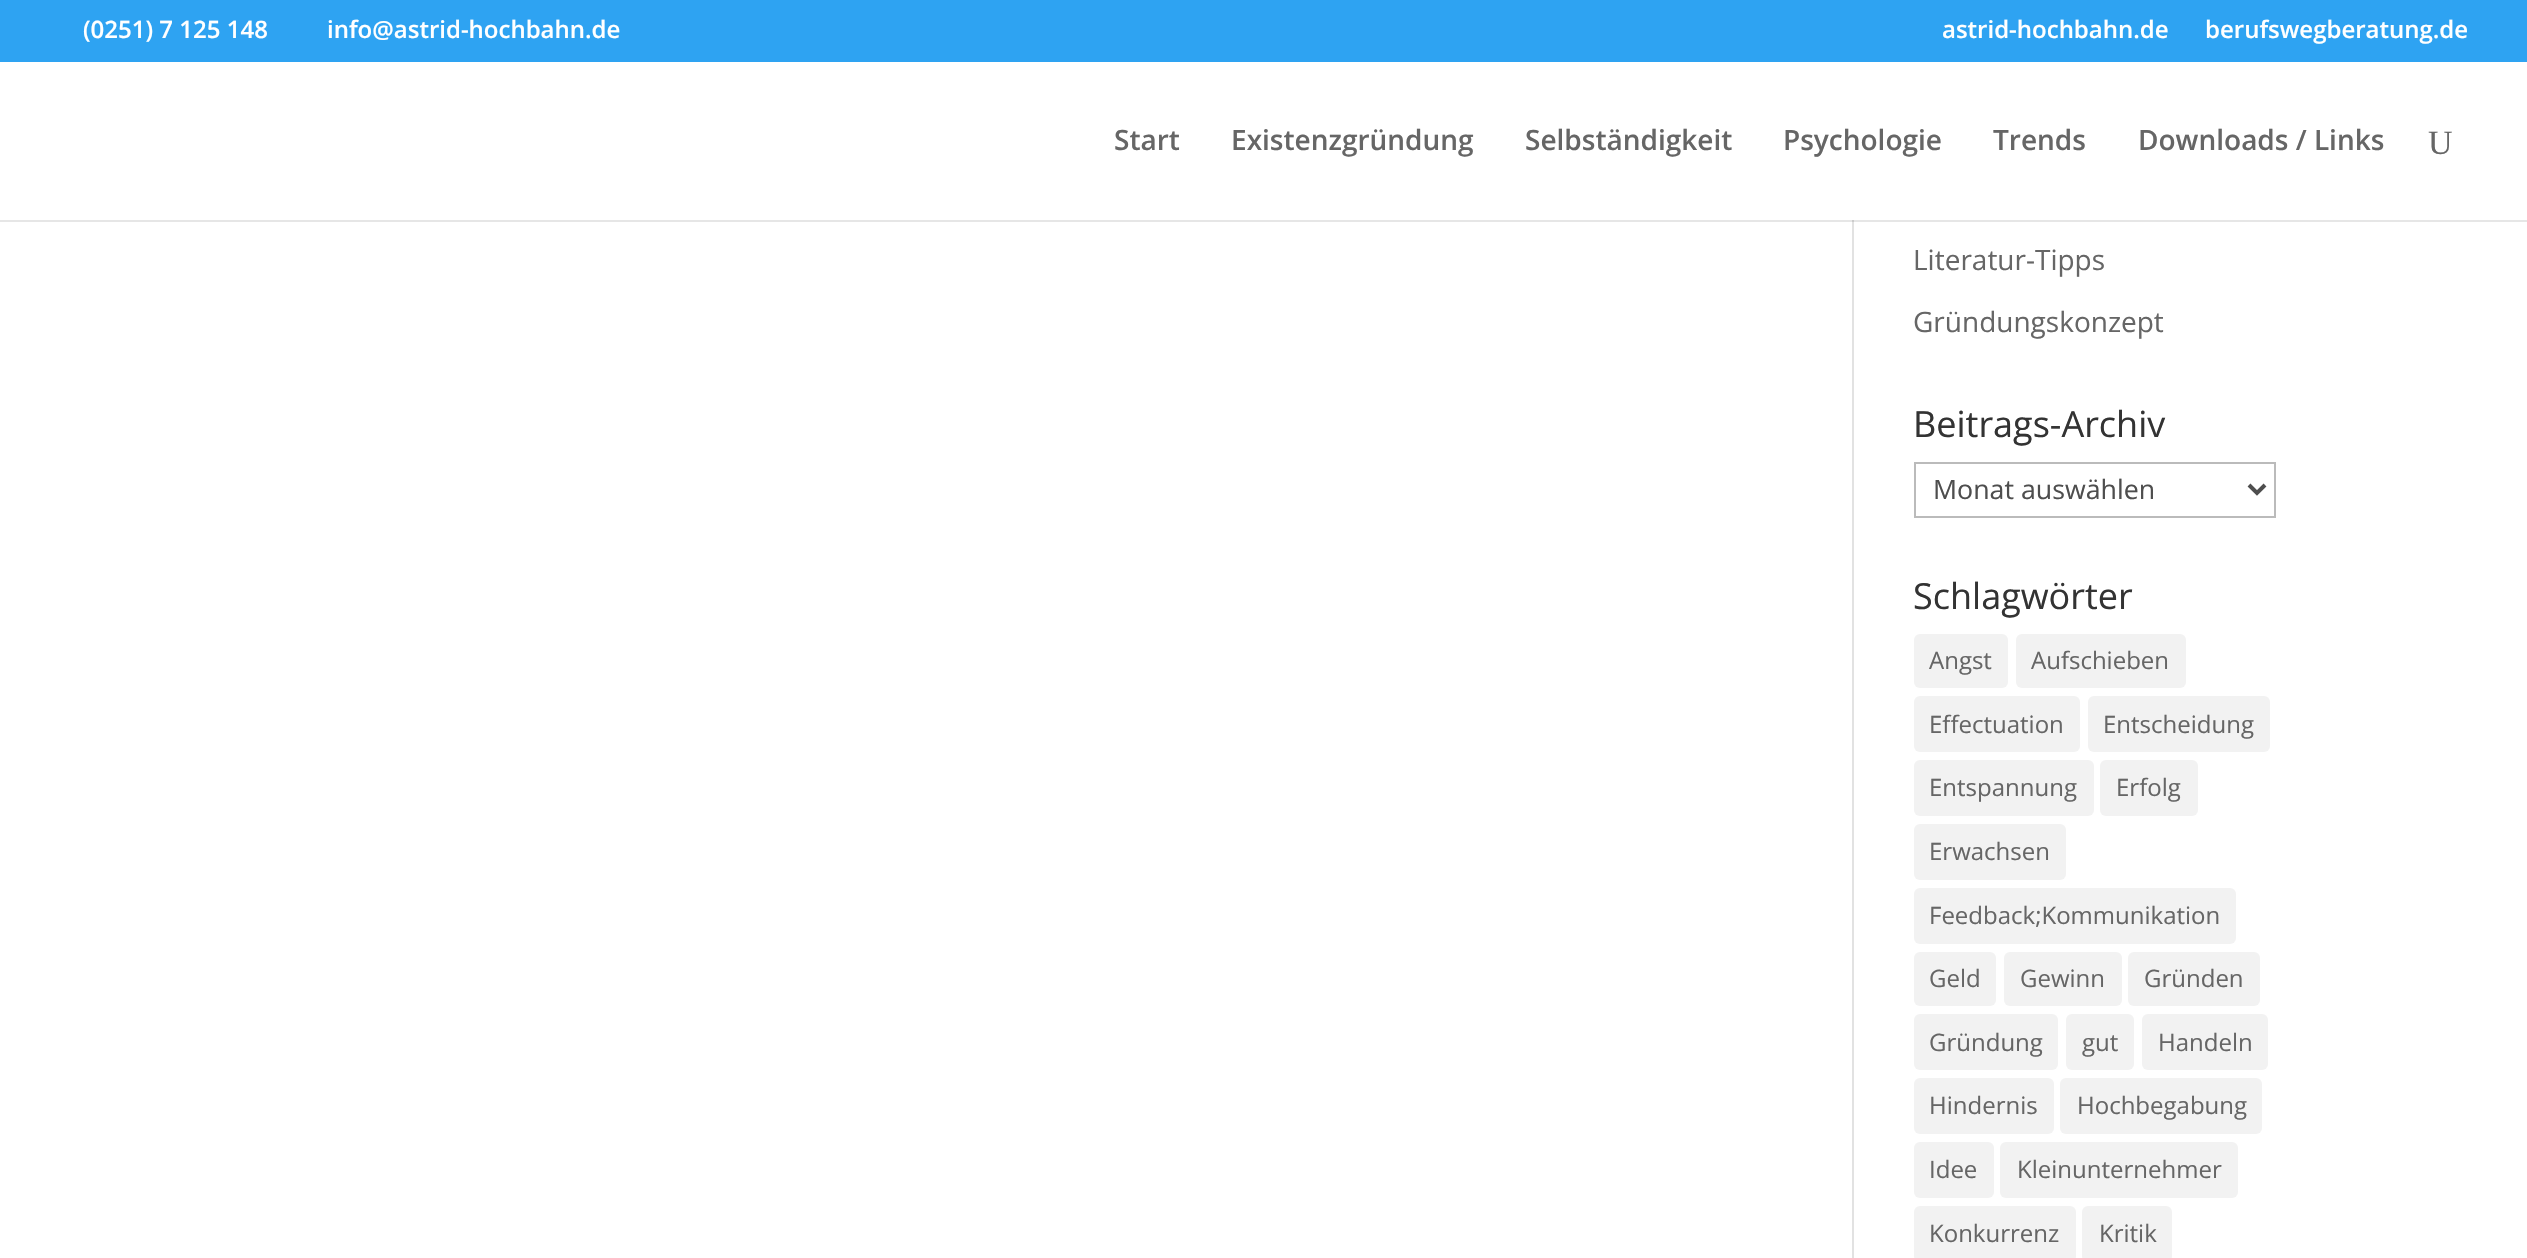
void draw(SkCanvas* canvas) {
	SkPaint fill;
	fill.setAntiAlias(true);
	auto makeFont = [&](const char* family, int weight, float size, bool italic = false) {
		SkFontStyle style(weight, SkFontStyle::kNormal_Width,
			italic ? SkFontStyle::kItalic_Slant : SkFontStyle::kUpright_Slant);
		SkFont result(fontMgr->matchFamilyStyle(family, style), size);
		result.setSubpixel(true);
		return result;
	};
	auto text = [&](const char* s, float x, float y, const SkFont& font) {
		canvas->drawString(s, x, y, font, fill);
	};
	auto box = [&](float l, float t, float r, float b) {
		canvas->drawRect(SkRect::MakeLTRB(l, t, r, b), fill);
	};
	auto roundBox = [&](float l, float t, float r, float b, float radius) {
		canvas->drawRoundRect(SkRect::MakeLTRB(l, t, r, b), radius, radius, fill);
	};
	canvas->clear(0xFFFFFFFF);
	fill.setColor(0xFF2EA3F2);
	box(0, 0, 2527, 62);
	fill.setColor(0xFFE6E6E6);
	box(0, 220, 2527, 222);
	fill.setColor(0xFFE2E2E2);
	box(1852, 222, 1854, 1258);
	fill.setColor(0xFFCBCBCB);
	box(1852, 220, 1854, 222);
	fill.setStyle(SkPaint::kStroke_Style);
	fill.setStrokeWidth(2);
	fill.setColor(0xFFBBBBBB);
	canvas->drawRect(SkRect::MakeLTRB(1915, 463, 2275, 517), fill);
	fill.setStrokeWidth(4);
	fill.setColor(0xFF4E4E4E);
	canvas->drawPath(SkPathBuilder().moveTo(2249, 485).lineTo(2257, 493).lineTo(2265, 485).detach(), fill);
	fill.setStyle(SkPaint::kFill_Style);
	fill.setColor(0xFFF2F2F2);
	roundBox(1914, 634, 2008, 688, 6);
	roundBox(2016, 634, 2186, 688, 6);
	roundBox(1914, 696, 2080, 752, 6);
	roundBox(2088, 696, 2270, 752, 6);
	roundBox(1914, 760, 2094, 816, 6);
	roundBox(2100, 760, 2198, 816, 6);
	roundBox(1914, 824, 2066, 880, 6);
	roundBox(1914, 888, 2236, 944, 6);
	roundBox(1914, 952, 1996, 1006, 6);
	roundBox(2004, 952, 2122, 1006, 6);
	roundBox(2128, 952, 2260, 1006, 6);
	roundBox(1914, 1014, 2058, 1070, 6);
	roundBox(2066, 1014, 2134, 1070, 6);
	roundBox(2142, 1014, 2268, 1070, 6);
	roundBox(1914, 1078, 2054, 1134, 6);
	roundBox(2060, 1078, 2262, 1134, 6);
	roundBox(1914, 1142, 1994, 1198, 6);
	roundBox(2000, 1142, 2238, 1198, 6);
	roundBox(1914, 1206, 2076, 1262, 6);
	roundBox(2082, 1206, 2172, 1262, 6);
	auto font1 = makeFont("Open Sans", 600, 24);
	fill.setColor(0xFFFFFFFF);
	text("(0251) 7 125 148", 83, 38, font1);
	text("info@astrid-hochbahn.de", 327, 38, font1);
	text("astrid-hochbahn.de", 1942, 38, font1);
	text("berufswegberatung.de", 2205, 38, font1);
	auto font2 = makeFont("Open Sans", 600, 28);
	fill.setColor(0xFF666666);
	text("Start", 1114, 150, font2);
	text("Existenzgründung", 1231, 150, font2);
	text("Selbständigkeit", 1525, 150, font2);
	text("Psychologie", 1783, 150, font2);
	text("Trends", 1993, 150, font2);
	text("Downloads / Links", 2138, 150, font2);
	auto font3 = makeFont("Liberation Serif", 400, 34);
	text("U", 2428, 154, font3);
	auto font4 = makeFont("Open Sans", 400, 28);
	text("Literatur-Tipps", 1913, 270, font4);
	text("Gründungskonzept", 1913, 332, font4);
	auto font5 = makeFont("Open Sans", 400, 36);
	fill.setColor(0xFF333333);
	text("Beitrags-Archiv", 1913, 437, font5);
	auto font6 = makeFont("Open Sans", 400, 26.75f);
	fill.setColor(0xFF4E4E4E);
	text("Monat auswählen", 1933, 499, font6);
	fill.setColor(0xFF333333);
	text("Schlagwörter", 1913, 609, font5);
	auto font7 = makeFont("Open Sans", 400, 24);
	fill.setColor(0xFF666666);
	text("Angst", 1929, 669, font7);
	text("Aufschieben", 2031, 669, font7);
	text("Effectuation", 1929, 733, font7);
	text("Entscheidung", 2103, 733, font7);
	text("Entspannung", 1929, 796, font7);
	text("Erfolg", 2116, 796, font7);
	text("Erwachsen", 1929, 860, font7);
	text("Feedback;Kommunikation", 1929, 924, font7);
	text("Geld", 1929, 987, font7);
	text("Gewinn", 2020, 987, font7);
	text("Gründen", 2144, 987, font7);
	text("Gründung", 1929, 1051, font7);
	text("gut", 2082, 1051, font7);
	text("Handeln", 2158, 1051, font7);
	text("Hindernis", 1929, 1114, font7);
	text("Hochbegabung", 2077, 1114, font7);
	text("Idee", 1929, 1178, font7);
	text("Kleinunternehmer", 2017, 1178, font7);
	text("Konkurrenz", 1929, 1242, font7);
	text("Kritik", 2099, 1242, font7);
}
